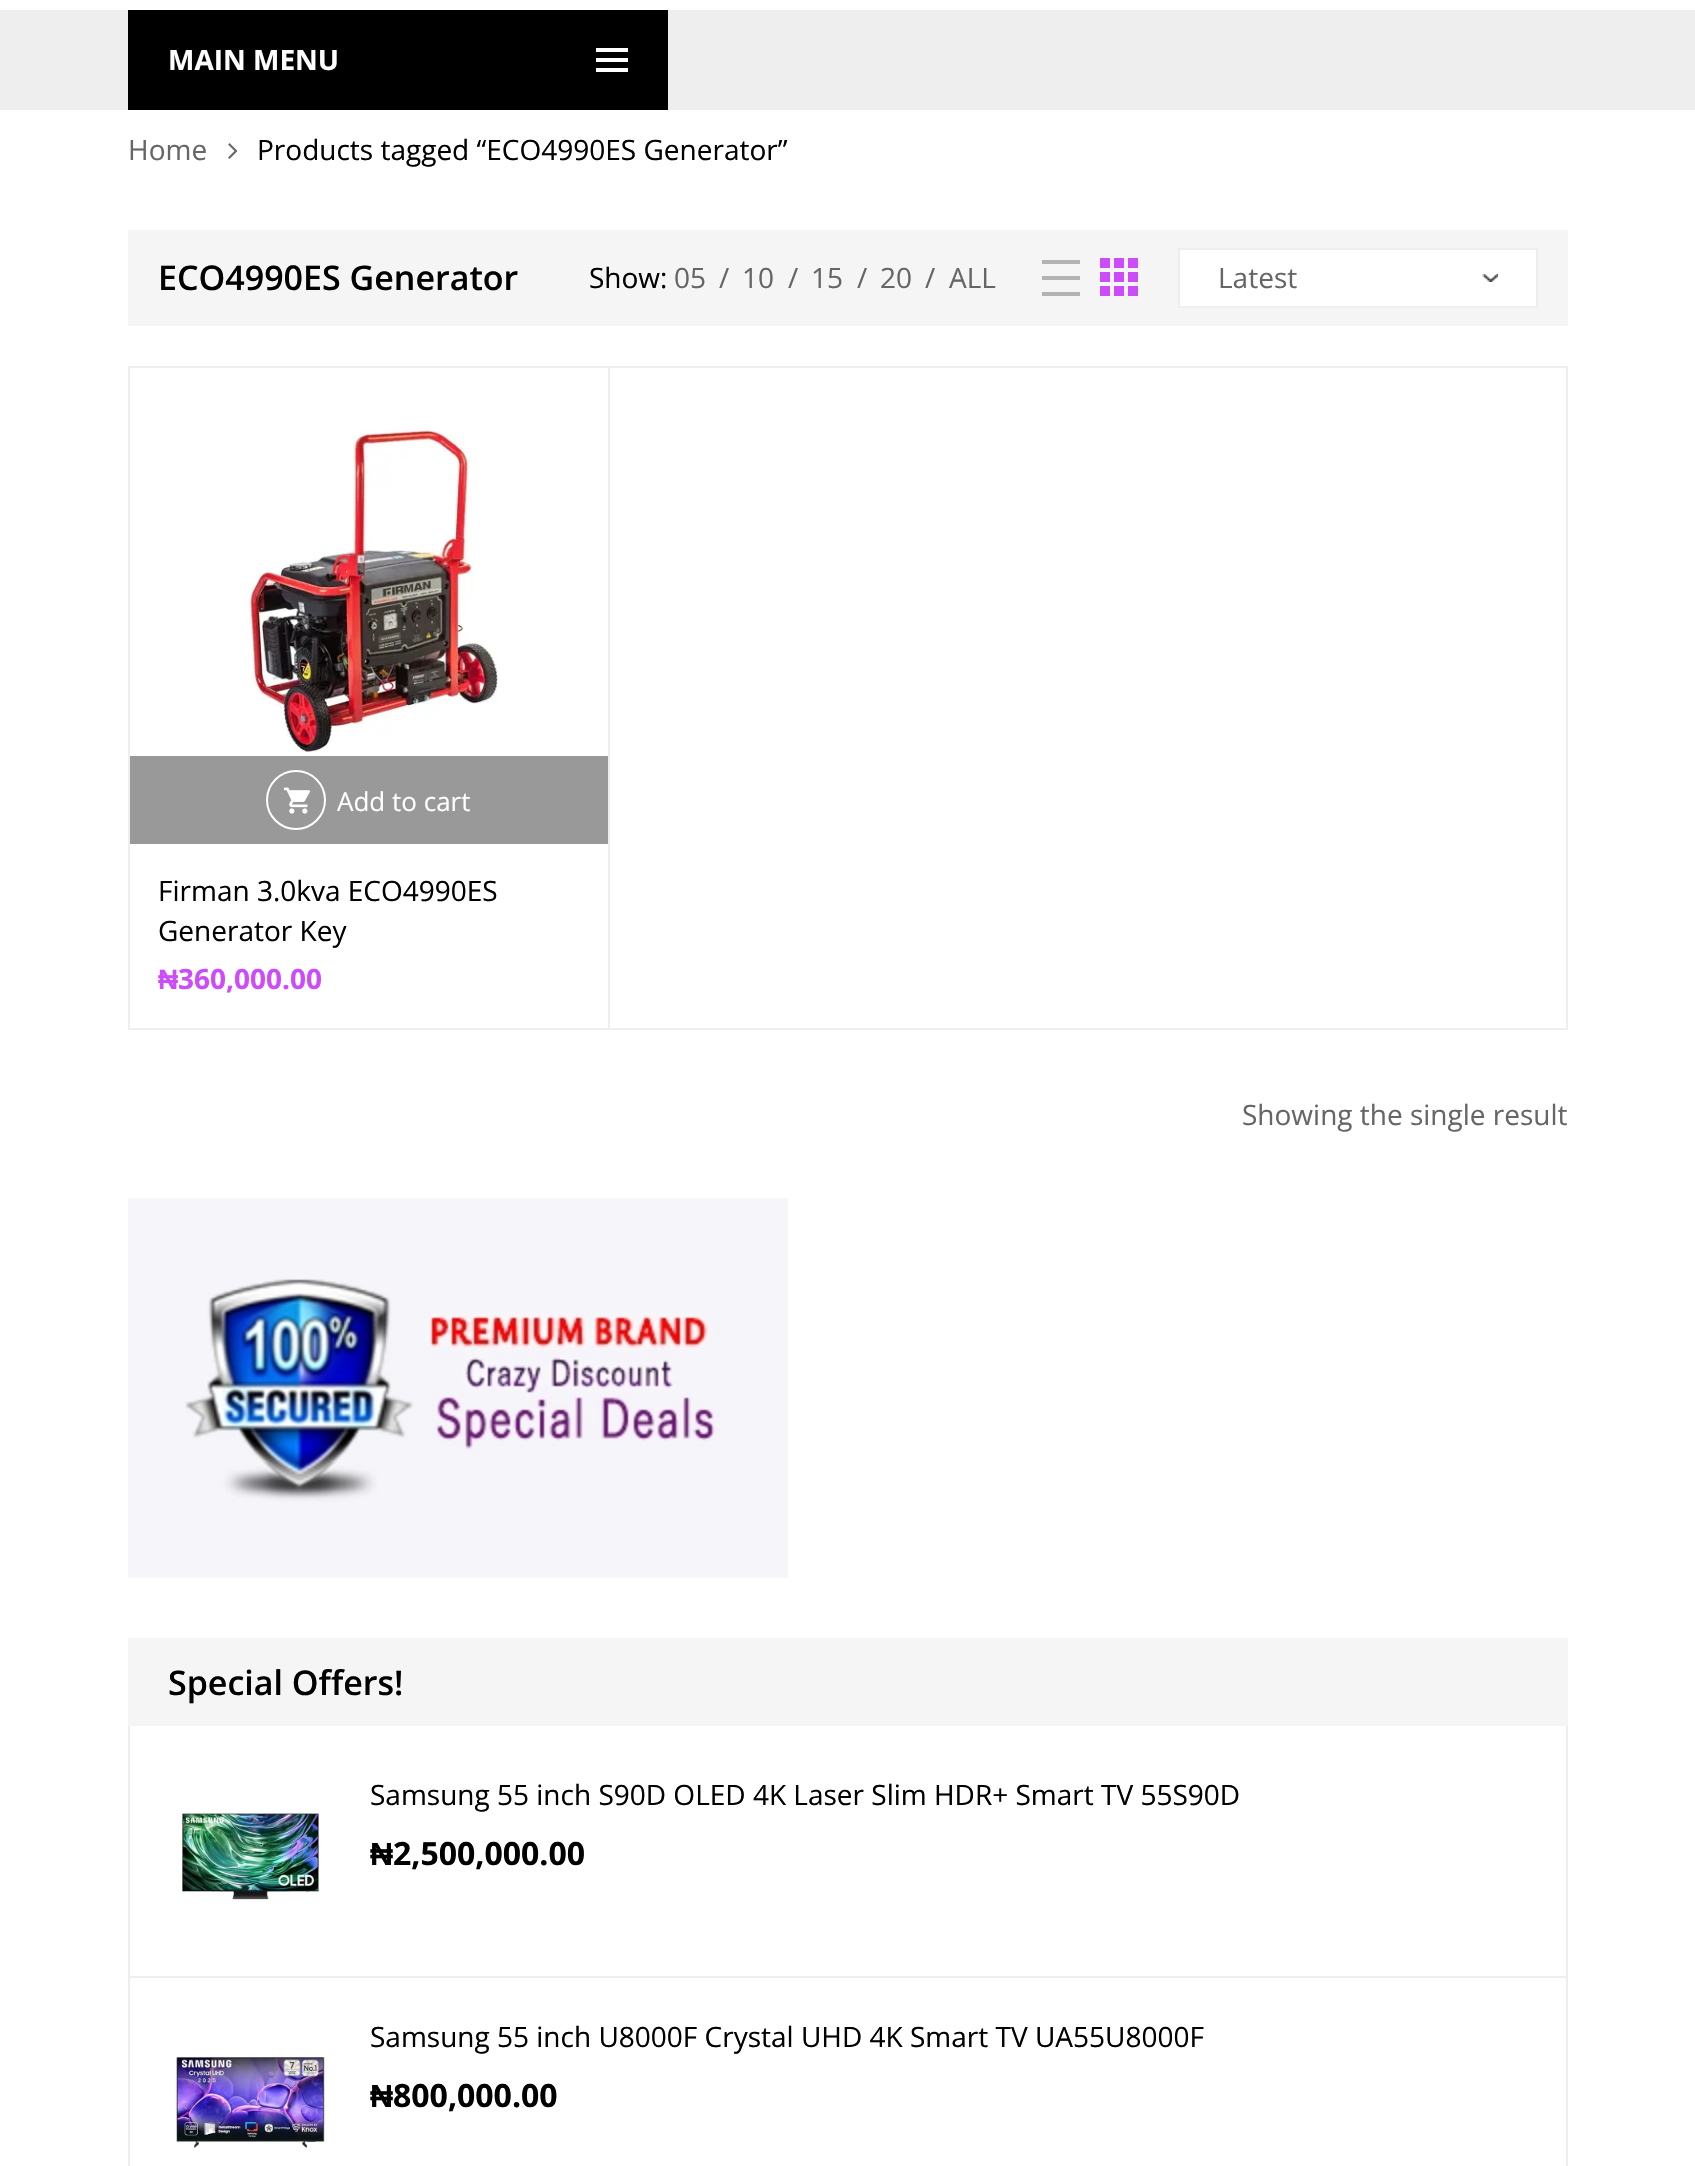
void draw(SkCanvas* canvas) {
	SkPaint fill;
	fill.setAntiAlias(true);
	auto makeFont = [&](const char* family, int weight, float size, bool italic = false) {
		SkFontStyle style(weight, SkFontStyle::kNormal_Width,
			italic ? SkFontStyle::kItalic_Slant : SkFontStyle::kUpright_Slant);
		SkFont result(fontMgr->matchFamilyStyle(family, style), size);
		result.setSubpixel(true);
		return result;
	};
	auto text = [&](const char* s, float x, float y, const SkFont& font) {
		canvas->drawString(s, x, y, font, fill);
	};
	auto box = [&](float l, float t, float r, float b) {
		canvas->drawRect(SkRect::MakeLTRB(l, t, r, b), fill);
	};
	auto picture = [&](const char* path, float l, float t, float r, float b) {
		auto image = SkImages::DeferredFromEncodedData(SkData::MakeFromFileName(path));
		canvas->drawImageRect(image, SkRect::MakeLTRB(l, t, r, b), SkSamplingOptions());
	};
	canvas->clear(0xFFFFFFFF);
	fill.setColor(0xFFEEEEEE);
	box(0, 10, 1695, 110);
	fill.setColor(0xFF000000);
	box(128, 10, 668, 110);
	fill.setColor(0xFFFFFFFF);
	box(596, 48, 628, 52);
	box(596, 58, 628, 62);
	box(596, 68, 628, 72);
	picture("image0.png", 228, 143, 238, 159);
	fill.setColor(0xFFF5F5F5);
	box(128, 230, 1568, 326);
	fill.setColor(0xFFB3B3B3);
	box(1042, 260, 1080, 264);
	box(1042, 276, 1080, 280);
	box(1042, 292, 1080, 296);
	fill.setColor(0xFFCD4CF9);
	box(1100, 258, 1110, 268);
	box(1114, 258, 1124, 268);
	box(1128, 258, 1138, 268);
	box(1100, 272, 1110, 282);
	box(1114, 272, 1124, 282);
	box(1128, 272, 1138, 282);
	box(1100, 286, 1110, 296);
	box(1114, 286, 1124, 296);
	box(1128, 286, 1138, 296);
	fill.setColor(0xFFFFFFFF);
	box(1180, 250, 1536, 306);
	picture("image1.png", 1482, 274, 1498, 282);
	fill.setStyle(SkPaint::kStroke_Style);
	fill.setStrokeWidth(2);
	fill.setColor(0xFFEEEEEE);
	canvas->drawRect(SkRect::MakeLTRB(1179, 249, 1537, 307), fill);
	canvas->drawRect(SkRect::MakeLTRB(129, 367, 1567, 1029), fill);
	fill.setStyle(SkPaint::kFill_Style);
	box(608, 368, 610, 1030);
	picture("image2.png", 245, 429, 499, 753);
	fill.setColor(0xFF999999);
	box(130, 756, 608, 844);
	fill.setStyle(SkPaint::kStroke_Style);
	fill.setColor(0xFFFFFFFF);
	canvas->drawCircle(296, 800, 29, fill);
	picture("image3.png", 284, 787, 310, 814);
	picture("image4.png", 128, 1198, 788, 1578);
	fill.setStyle(SkPaint::kFill_Style);
	fill.setColor(0xFFF5F5F5);
	box(128, 1638, 1568, 1726);
	fill.setColor(0xFFEEEEEE);
	box(1566, 1726, 1568, 2166);
	box(128, 1726, 130, 2166);
	box(130, 1976, 1566, 1978);
	picture("image5.png", 182, 1812, 321, 1902);
	picture("image6.png", 174, 2055, 326, 2148);
	auto font1 = makeFont("Open Sans", 700, 28);
	fill.setColor(0xFFFFFFFF);
	text("MAIN MENU", 168, 70, font1);
	auto font2 = makeFont("Open Sans", 400, 28);
	fill.setColor(0xFF666666);
	text("Home", 128, 160, font2);
	fill.setColor(0xFF000000);
	text("Products tagged “ECO4990ES Generator”", 257, 160, font2);
	auto font3 = makeFont("Open Sans", 600, 34);
	text("ECO4990ES Generator", 158, 290, font3);
	text("Show:", 589, 288, font2);
	fill.setColor(0xFF666666);
	text("05", 674, 288, font2);
	text("/", 719, 288, font2);
	text("10", 742, 288, font2);
	text("/", 788, 288, font2);
	text("15", 811, 288, font2);
	text("/", 857, 288, font2);
	text("20", 880, 288, font2);
	text("/", 925, 288, font2);
	text("ALL", 949, 288, font2);
	text("Latest", 1218, 288, font2);
	auto font4 = makeFont("Open Sans", 400, 26);
	fill.setColor(0xFFFFFFFF);
	text("Add to cart", 337, 811, font4);
	fill.setColor(0xFF000000);
	text("Firman 3.0kva ECO4990ES", 158, 901, font2);
	text("Generator Key", 158, 941, font2);
	auto font5 = makeFont("Liberation Sans", 700, 28);
	fill.setColor(0xFFCD4CF9);
	text("₦", 158, 989, font5);
	text("360,000.00", 178, 989, font1);
	fill.setColor(0xFF666666);
	text("Showing the single result", 1242, 1125, font2);
	fill.setColor(0xFF000000);
	text("Special Offers!", 168, 1695, font3);
	text("Samsung 55 inch S90D OLED 4K Laser Slim HDR+ Smart TV 55S90D", 370, 1805, font2);
	auto font6 = makeFont("Liberation Sans", 700, 32);
	text("₦", 370, 1865, font6);
	auto font7 = makeFont("Open Sans", 700, 32);
	text("2,500,000.00", 393, 1865, font7);
	text("Samsung 55 inch U8000F Crystal UHD 4K Smart TV UA55U8000F", 370, 2047, font2);
	text("₦", 370, 2107, font6);
	text("800,000.00", 393, 2107, font7);
}
